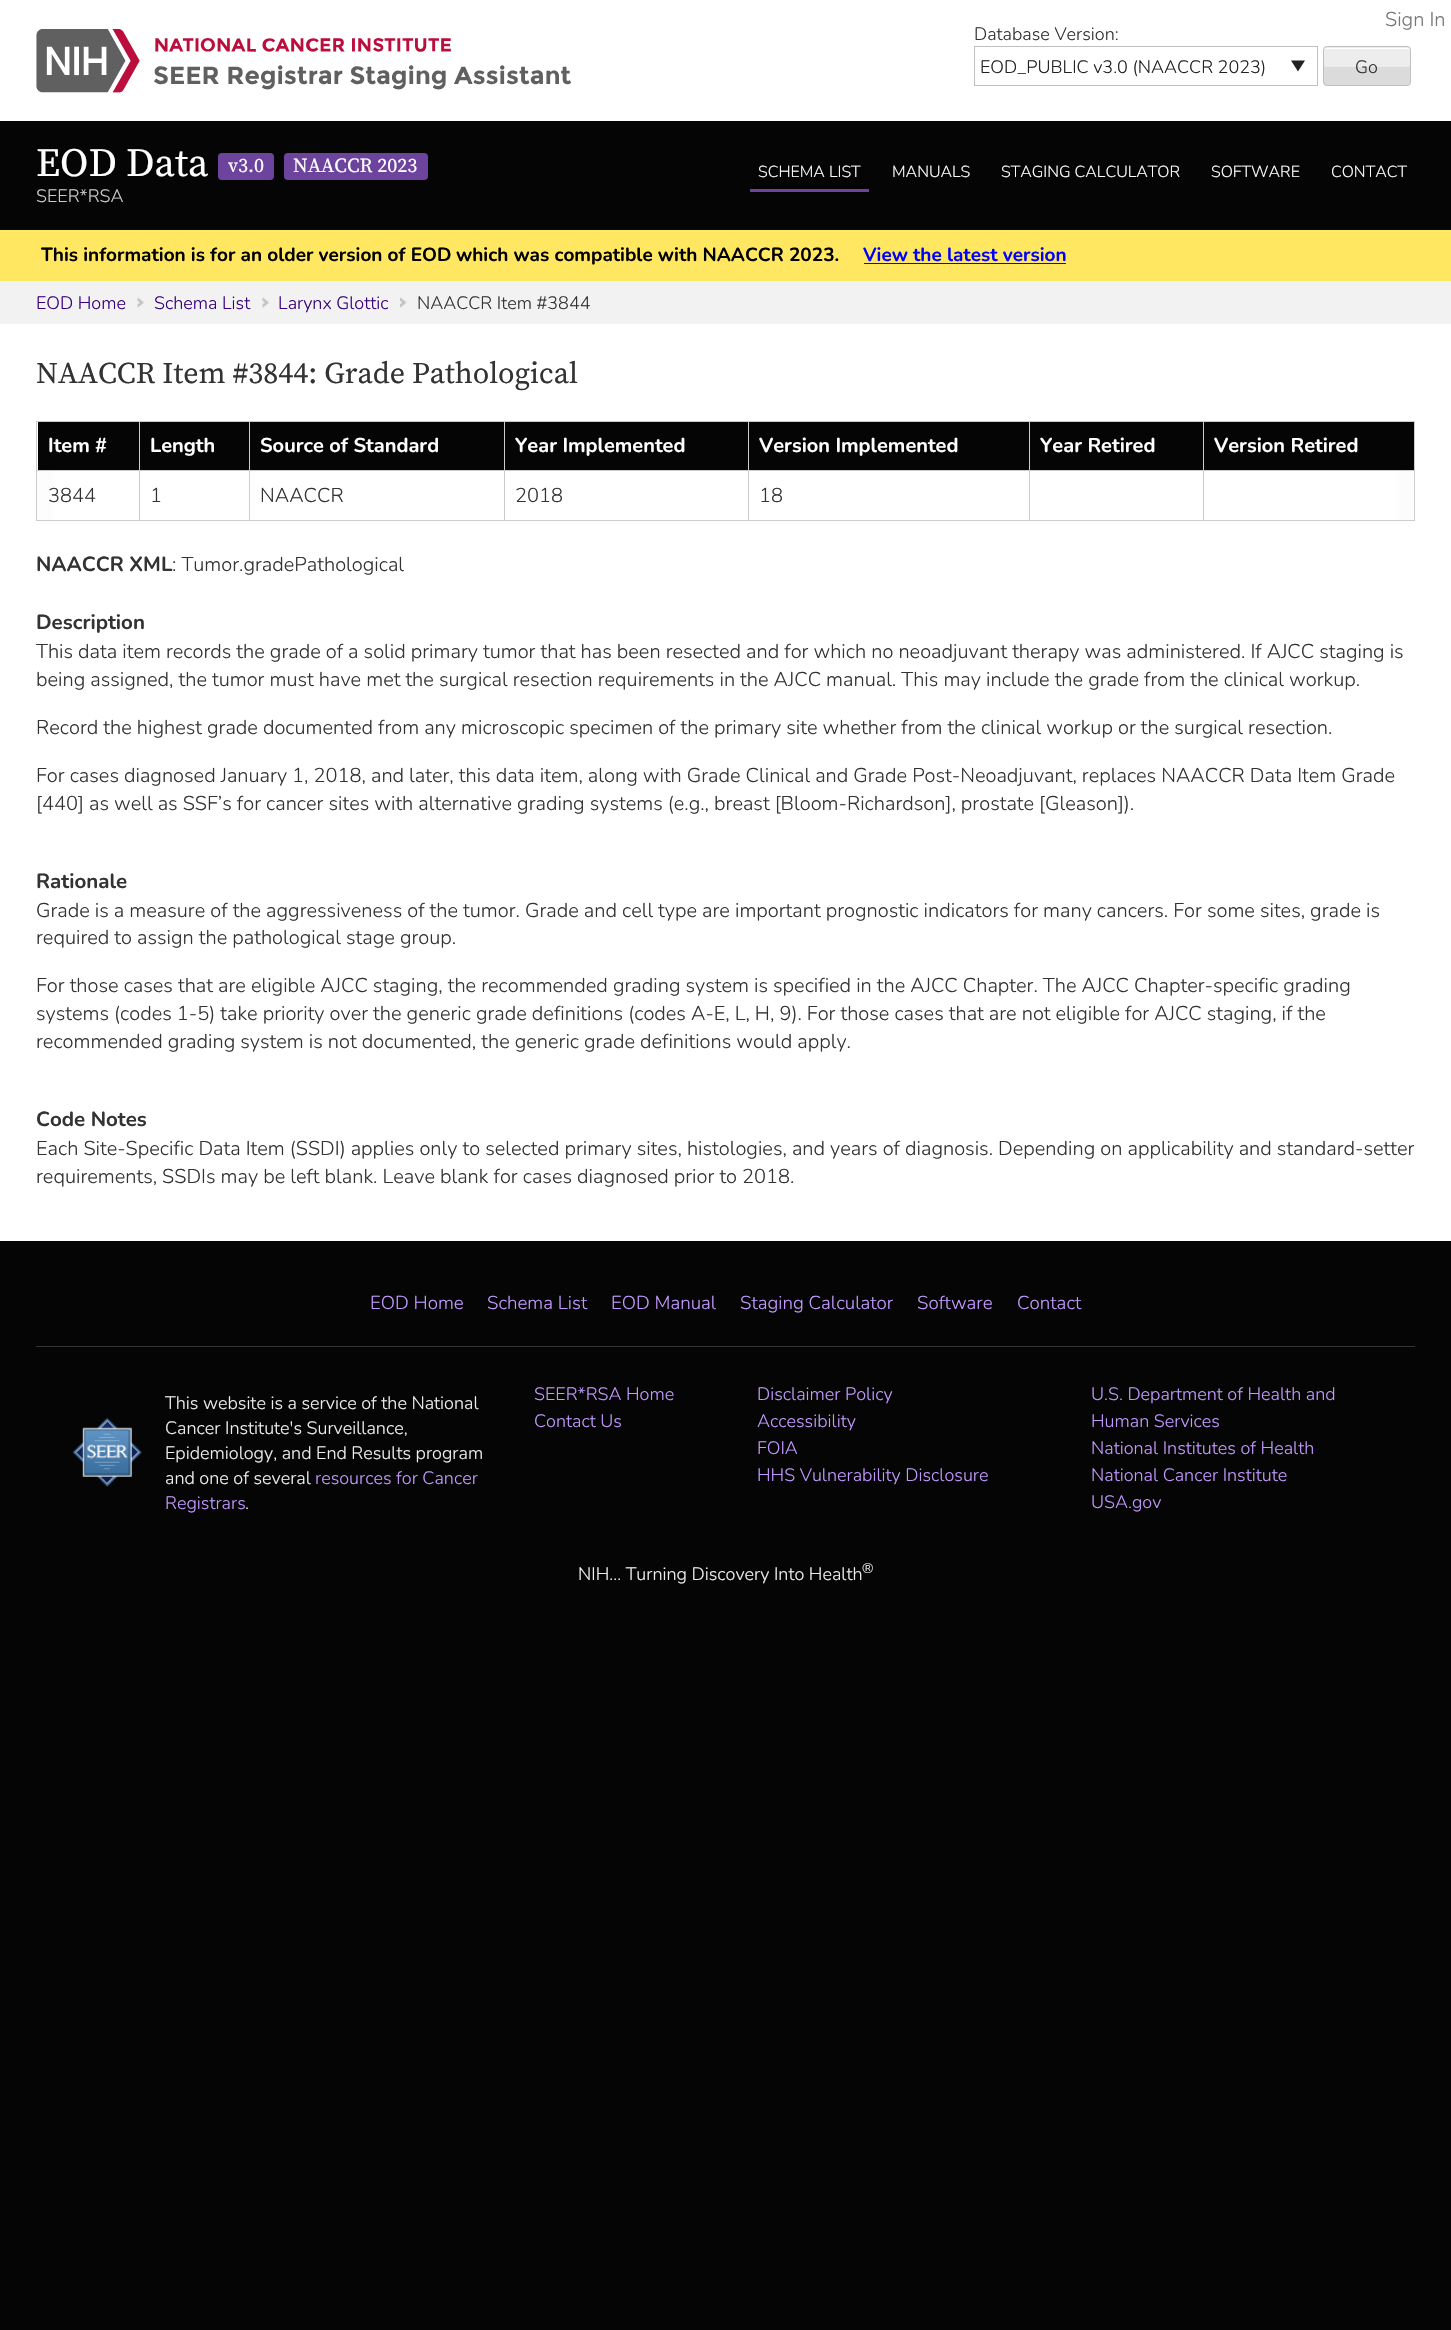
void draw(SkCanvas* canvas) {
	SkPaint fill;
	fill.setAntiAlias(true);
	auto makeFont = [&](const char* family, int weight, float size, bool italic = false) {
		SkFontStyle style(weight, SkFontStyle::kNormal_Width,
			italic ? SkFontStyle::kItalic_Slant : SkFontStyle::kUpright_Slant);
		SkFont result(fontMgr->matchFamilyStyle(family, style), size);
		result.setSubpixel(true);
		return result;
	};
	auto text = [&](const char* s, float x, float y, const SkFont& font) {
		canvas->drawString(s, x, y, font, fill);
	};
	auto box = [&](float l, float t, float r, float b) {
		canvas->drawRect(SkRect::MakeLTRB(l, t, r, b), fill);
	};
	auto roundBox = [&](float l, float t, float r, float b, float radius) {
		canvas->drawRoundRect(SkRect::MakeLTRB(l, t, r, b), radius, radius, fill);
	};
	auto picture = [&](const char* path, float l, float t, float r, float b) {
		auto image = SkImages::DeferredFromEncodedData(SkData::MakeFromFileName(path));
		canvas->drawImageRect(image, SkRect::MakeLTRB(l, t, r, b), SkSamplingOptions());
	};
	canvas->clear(0xFF050505);
	fill.setColor(0xFFFFFFFF);
	box(0, 0, 1451, 121);
	picture("image0.png", 36, 29, 571, 93);
	fill.setColor(0xFF222222);
	canvas->drawPath(SkPathBuilder().moveTo(1305, 60.5f).lineTo(1298, 71.5f).lineTo(1291, 60.5f).close().detach(), fill);
	fill.setStyle(SkPaint::kStroke_Style);
	fill.setStrokeWidth(1);
	fill.setColor(0xFFC0C0C0);
	canvas->drawRect(SkRect::MakeLTRB(974.5f, 46.5f, 1317.5f, 85.5f), fill);
	fill.setStyle(SkPaint::kFill_Style);
	fill.setColor(0xFFEDEDED);
	roundBox(1323, 46, 1411, 86, 4);
	fill.setColor(0xFFFFFFFF);
	canvas->drawPath(SkPathBuilder().moveTo(1326, 49).lineTo(1408, 49).cubicTo(1409, 49, 1410, 50, 1410, 51).cubicTo(1410, 50, 1409, 48, 1408, 48).lineTo(1326, 48).cubicTo(1325, 48, 1324, 49, 1324, 51).cubicTo(1324, 50, 1325, 49, 1326, 49).close().detach(), fill);
	fill.setColor(0xFFDBDBDB);
	canvas->drawPath(SkPathBuilder().moveTo(1324, 64).lineTo(1324, 82).cubicTo(1324, 84, 1325, 85, 1326, 85).lineTo(1408, 85).cubicTo(1409, 85, 1410, 84, 1410, 82).lineTo(1410, 64).cubicTo(1410, 66, 1409, 67, 1408, 67).lineTo(1326, 67).cubicTo(1325, 67, 1324, 66, 1324, 64).close().detach(), fill);
	fill.setStyle(SkPaint::kStroke_Style);
	fill.setColor(0xFFC0C0C0);
	canvas->drawRoundRect(SkRect::MakeLTRB(1323.5f, 46.5f, 1410.5f, 85.5f), 3.5f, 3.5f, fill);
	fill.setStyle(SkPaint::kFill_Style);
	fill.setColor(0xFF6C439D);
	roundBox(218, 153, 274, 180, 4);
	roundBox(284, 153, 428, 180, 4);
	box(750, 189, 869, 192);
	fill.setColor(0xFFFFE761);
	box(0, 230, 1451, 281);
	fill.setColor(0xFF0000FF);
	box(864, 263, 1066, 264);
	fill.setColor(0xFFF2F2F2);
	box(0, 281, 1451, 324);
	picture("image1.png", 137, 297, 144, 308);
	picture("image2.png", 262, 297, 269, 308);
	picture("image3.png", 400, 297, 407, 308);
	fill.setColor(0xFFFFFFFF);
	box(0, 324, 1451, 1241);
	{
		const SkColor colors[] = {0xFFC3C3C5, 0xFFFFFFFF};
		const float stops[] = {0, 1};
		const SkPoint ends[] = {{1415, 471}, {1395, 471}};
		fill.setShader(SkGradientShader::MakeLinear(ends, colors, stops, 2, SkTileMode::kClamp));
		fill.setAlpha(255);
	}
	box(1396, 471, 1414, 520);
	{
		const SkColor colors[] = {0xFFC3C3C5, 0xFFFFFFFF};
		const float stops[] = {0, 1};
		const SkPoint ends[] = {{36, 471}, {56, 471}};
		fill.setShader(SkGradientShader::MakeLinear(ends, colors, stops, 2, SkTileMode::kClamp));
		fill.setAlpha(255);
	}
	box(37, 422, 55, 520);
	{
		const SkColor colors[] = {0xFFFFFFFF, 0x00FFFFFF};
		const float stops[] = {0, 1};
		const SkPoint ends[] = {{1415, 471}, {1335, 471}};
		fill.setShader(SkGradientShader::MakeLinear(ends, colors, stops, 2, SkTileMode::kClamp));
		fill.setAlpha(255);
	}
	box(1396, 471, 1414, 520);
	{
		const SkColor colors[] = {0xFFFFFFFF, 0x00FFFFFF};
		const float stops[] = {0, 1};
		const SkPoint ends[] = {{36, 471}, {116, 471}};
		fill.setShader(SkGradientShader::MakeLinear(ends, colors, stops, 2, SkTileMode::kClamp));
		fill.setAlpha(255);
	}
	box(37, 422, 55, 520);
	fill.setShader(nullptr);
	fill.setColor(0xFF050505);
	box(38, 422, 139, 470);
	fill.setColor(0xFFCCCCCC);
	box(1203, 421, 1415, 422);
	box(1203, 470, 1415, 471);
	box(1414, 470, 1415, 521);
	box(1203, 520, 1415, 521);
	box(1203, 470, 1204, 521);
	box(1029, 470, 1204, 471);
	box(1203, 421, 1204, 471);
	box(1029, 421, 1204, 422);
	box(1029, 520, 1204, 521);
	box(1029, 470, 1030, 521);
	box(748, 470, 1030, 471);
	box(1029, 421, 1030, 471);
	box(748, 421, 1030, 422);
	box(748, 520, 1030, 521);
	box(748, 470, 749, 521);
	box(504, 470, 749, 471);
	box(748, 421, 749, 471);
	box(504, 421, 749, 422);
	box(504, 520, 749, 521);
	box(504, 470, 505, 521);
	box(249, 470, 505, 471);
	box(504, 421, 505, 471);
	box(249, 421, 505, 422);
	box(249, 520, 505, 521);
	box(249, 470, 250, 521);
	box(139, 470, 250, 471);
	box(249, 421, 250, 471);
	box(139, 421, 250, 422);
	box(139, 520, 250, 521);
	box(139, 470, 140, 521);
	box(36, 470, 140, 471);
	box(139, 421, 140, 471);
	box(36, 421, 140, 422);
	box(36, 520, 140, 521);
	box(36, 470, 37, 521);
	box(36, 421, 37, 471);
	fill.setColor(0xFF050505);
	box(140, 422, 249, 470);
	box(250, 422, 504, 470);
	box(505, 422, 748, 470);
	box(749, 422, 1029, 470);
	box(1030, 422, 1203, 470);
	box(1204, 422, 1414, 470);
	fill.setColor(0xFFCCCCCC);
	box(1414, 421, 1415, 471);
	fill.setColor(0xFF333333);
	box(36, 1346, 1415, 1347);
	picture("image4.png", 72, 1417, 142, 1487);
	auto font1 = makeFont("Nunito", 200, 20);
	fill.setColor(0xFF767676);
	text("Sign In", 1385, 26, font1);
	auto font2 = makeFont("Nunito", 200, 18);
	fill.setColor(0xFF333333);
	text("Database Version:", 974, 40, font2);
	fill.setColor(0xFF222222);
	text("EOD_PUBLIC v3.0 (NAACCR 2023)", 980, 73, font2);
	fill.setColor(0xFF333333);
	text("Go", 1355, 73, font2);
	auto font3 = makeFont("Source Serif Pro", 400, 40);
	fill.setColor(0xFFFFFFFF);
	text("EOD Data", 36, 176, font3);
	auto font4 = makeFont("Source Serif Pro", 400, 20);
	text("v3.0", 228, 172, font4);
	text("NAACCR 2023", 293, 172, font4);
	fill.setColor(0xFFCCCCCC);
	text("SEER*RSA", 36, 202, font2);
	auto font5 = makeFont("Nunito", 200, 16);
	fill.setColor(0xFFFFFFFF);
	text("SCHEMA LIST", 758, 177, font5);
	text("MANUALS", 892, 177, font5);
	text("STAGING CALCULATOR", 1001, 177, font5);
	text("SOFTWARE", 1211, 177, font5);
	text("CONTACT", 1331, 177, font5);
	auto font6 = makeFont("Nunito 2", 200, 19);
	fill.setColor(0xFF000000);
	text("This information is for an older version of EOD", 41, 261, font6);
	text("which was compatible with NAACCR 2023.", 456, 261, font6);
	fill.setColor(0xFF0000FF);
	text("View the latest version", 863, 261, font6);
	fill.setColor(0xFF37007A);
	text("EOD Home", 36, 309, font2);
	text("Schema List", 154, 309, font2);
	text("Larynx Glottic", 278, 309, font2);
	fill.setColor(0xFF333333);
	text("NAACCR Item #3844", 417, 309, font2);
	auto font7 = makeFont("Source Serif Pro", 400, 30);
	text("NAACCR Item #3844: Grade Pathological", 36, 383, font7);
	auto font8 = makeFont("Nunito 2", 200, 20);
	fill.setColor(0xFFFFFFFF);
	text("Item #", 48, 452, font8);
	text("Length", 150, 452, font8);
	text("Source of Standard", 260, 452, font8);
	text("Year Implemented", 515, 452, font8);
	text("Version Implemented", 759, 452, font8);
	text("Year Retired", 1040, 452, font8);
	text("Version Retired", 1214, 452, font8);
	fill.setColor(0xFF333333);
	text("3844", 48, 502, font1);
	text("1", 150, 502, font1);
	text("NAACCR", 260, 502, font1);
	text("2018", 515, 502, font1);
	text("18", 759, 502, font1);
	auto font9 = makeFont("Nunito 2", 200, 20.5f);
	text("NAACCR XML", 36, 571, font9);
	text(": Tumor.gradePathological", 172, 571, font1);
	text("Description", 36, 629, font9);
	text("This data item records the grade of a solid primary tumor that has been resected and for which no neoadjuvant therapy was administered. If AJCC staging is", 36, 658, font1);
	text("being assigned, the tumor must have met the surgical resection requirements in the AJCC manual. This may include the grade from the clinical workup.", 36, 686, font1);
	text("Record the highest grade documented from any microscopic specimen of the primary site whether from the clinical workup or the surgical resection.", 36, 734, font1);
	text("For cases diagnosed January 1, 2018, and later, this data item, along with Grade Clinical and Grade Post-Neoadjuvant, replaces NAACCR Data Item Grade", 36, 782, font1);
	text("[440] as well as SSF’s for cancer sites with alternative grading systems (e.g., breast [Bloom-Richardson], prostate [Gleason]).", 36, 810, font1);
	text("Rationale", 36, 888, font9);
	text("Grade is a measure of the aggressiveness of the tumor. Grade and cell type are important prognostic indicators for many cancers. For some sites, grade is", 36, 917, font1);
	text("required to assign the pathological stage group.", 36, 944, font1);
	text("For those cases that are eligible AJCC staging, the recommended grading system is specified in the AJCC Chapter. The AJCC Chapter-specific grading", 36, 992, font1);
	text("systems (codes 1-5) take priority over the generic grade definitions (codes A-E, L, H, 9). For those cases that are not eligible for AJCC staging, if the", 36, 1020, font1);
	text("recommended grading system is not documented, the generic grade definitions would apply.", 36, 1048, font1);
	text("Code Notes", 36, 1126, font9);
	text("Each Site-Specific Data Item (SSDI) applies only to selected primary sites, histologies, and years of diagnosis. Depending on applicability and standard-setter", 36, 1155, font1);
	text("requirements, SSDIs may be left blank. Leave blank for cases diagnosed prior to 2018.", 36, 1183, font1);
	auto font10 = makeFont("Nunito", 200, 18.75f);
	fill.setColor(0xFFC299FF);
	text("EOD Home", 370, 1309, font10);
	text("Schema List", 487, 1309, font10);
	text("EOD Manual", 611, 1309, font10);
	text("Staging Calculator", 740, 1309, font10);
	text("Software", 917, 1309, font10);
	text("Contact", 1017, 1309, font10);
	fill.setColor(0xFFEEEEEE);
	text("This website is a service of the National", 165, 1409, font2);
	text("Cancer Institute's Surveillance,", 165, 1434, font2);
	text("Epidemiology, and End Results program", 165, 1459, font2);
	text("and one of several", 165, 1484, font2);
	fill.setColor(0xFFC299FF);
	text("resources for Cancer", 315, 1484, font2);
	text("Registrars", 165, 1509, font2);
	fill.setColor(0xFFEEEEEE);
	text(".", 245, 1509, font2);
	fill.setColor(0xFFC299FF);
	text("SEER*RSA Home", 534, 1400, font2);
	text("Contact Us", 534, 1427, font2);
	text("Disclaimer Policy", 757, 1400, font2);
	text("Accessibility", 757, 1427, font2);
	text("FOIA", 757, 1454, font2);
	text("HHS Vulnerability Disclosure", 757, 1481, font2);
	text("U.S. Department of Health and", 1091, 1400, font2);
	text("Human Services", 1091, 1427, font2);
	text("National Institutes of Health", 1091, 1454, font2);
	text("National Cancer Institute", 1091, 1481, font2);
	text("USA.gov", 1091, 1508, font2);
	fill.setColor(0xFFEEEEEE);
	text("NIH... Turning Discovery Into Health", 578, 1580, font2);
	auto font11 = makeFont("Nunito", 200, 14);
	text("®", 862, 1573, font11);
}
